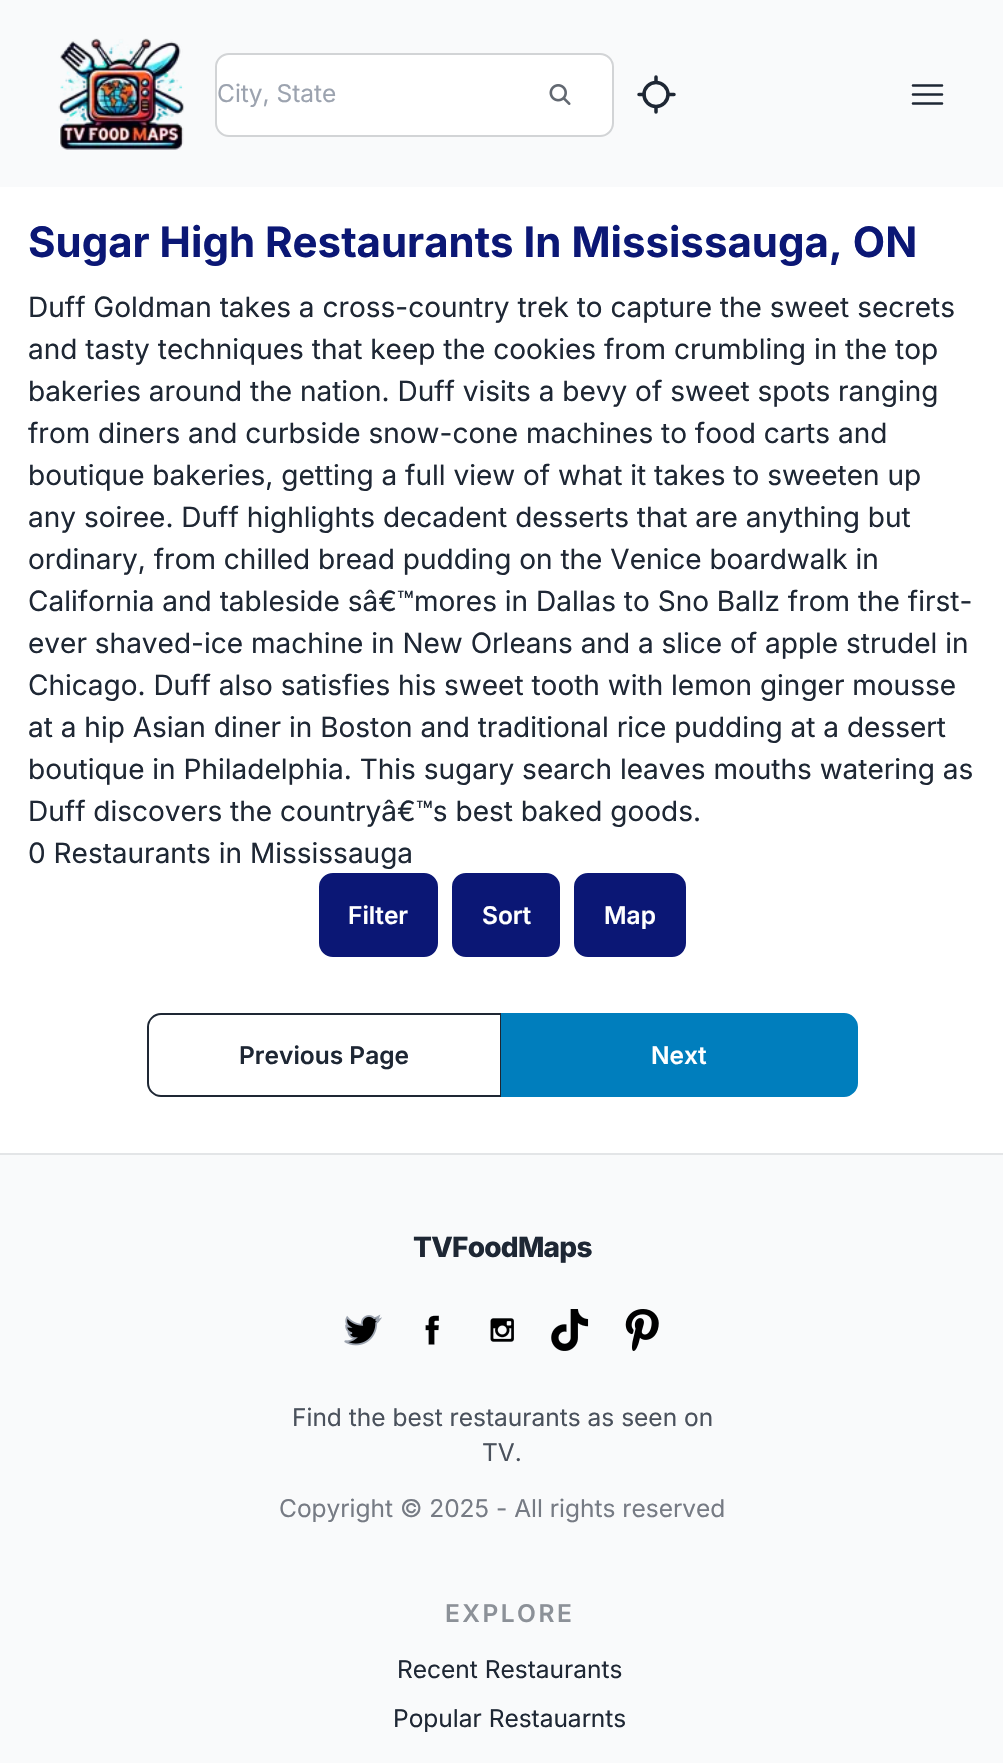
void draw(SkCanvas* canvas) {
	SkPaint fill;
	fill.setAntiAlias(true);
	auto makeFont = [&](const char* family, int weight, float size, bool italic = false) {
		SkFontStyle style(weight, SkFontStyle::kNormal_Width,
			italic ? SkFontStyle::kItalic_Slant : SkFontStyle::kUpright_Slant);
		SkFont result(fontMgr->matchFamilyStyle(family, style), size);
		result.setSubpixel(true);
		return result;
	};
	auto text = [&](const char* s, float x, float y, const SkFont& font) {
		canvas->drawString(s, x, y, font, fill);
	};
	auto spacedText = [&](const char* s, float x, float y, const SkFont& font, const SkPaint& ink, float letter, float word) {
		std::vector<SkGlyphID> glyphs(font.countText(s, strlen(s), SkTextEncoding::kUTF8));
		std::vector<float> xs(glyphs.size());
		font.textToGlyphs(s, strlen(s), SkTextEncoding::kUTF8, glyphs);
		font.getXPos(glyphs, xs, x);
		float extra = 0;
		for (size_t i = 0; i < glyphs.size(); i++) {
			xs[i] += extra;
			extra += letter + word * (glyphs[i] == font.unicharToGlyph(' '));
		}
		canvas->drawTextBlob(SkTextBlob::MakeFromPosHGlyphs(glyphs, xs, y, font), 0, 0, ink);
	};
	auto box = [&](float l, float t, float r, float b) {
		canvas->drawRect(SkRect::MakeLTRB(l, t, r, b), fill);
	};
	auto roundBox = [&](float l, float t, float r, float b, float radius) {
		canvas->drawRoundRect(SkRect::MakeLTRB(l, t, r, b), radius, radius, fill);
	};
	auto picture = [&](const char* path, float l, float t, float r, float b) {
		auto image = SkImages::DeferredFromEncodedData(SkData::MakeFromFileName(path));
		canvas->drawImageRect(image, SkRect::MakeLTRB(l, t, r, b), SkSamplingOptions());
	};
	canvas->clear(0xFFFFFFFF);
	fill.setColor(0xFFF9FAFB);
	box(0, 0, 1003, 187);
	picture("image0.png", 58, 38, 185, 150);
	fill.setColor(0xFFFFFFFF);
	roundBox(215, 53, 614, 137, 14);
	fill.setStyle(SkPaint::kStroke_Style);
	fill.setStrokeWidth(2);
	fill.setColor(0x331E2734);
	canvas->drawRoundRect(SkRect::MakeLTRB(216, 54, 613, 136), 13, 13, fill);
	picture("image1.png", 549, 84, 571, 105);
	fill.setStrokeWidth(3.5f);
	fill.setStrokeCap(SkPaint::kRound_Cap);
	fill.setStrokeJoin(SkPaint::kRound_Join);
	fill.setColor(0xFF1E2734);
	canvas->drawPath(SkPathBuilder().moveTo(639, 94.5f).lineTo(644, 94.5f).moveTo(668.5f, 94.5f).lineTo(674, 94.5f).moveTo(656, 77).lineTo(656, 82).moveTo(656, 107).lineTo(656, 112).detach(), fill);
	fill.setStrokeCap(SkPaint::kButt_Cap);
	fill.setStrokeJoin(SkPaint::kMiter_Join);
	canvas->drawCircle(656, 94.5f, 12, fill);
	fill.setStrokeWidth(2.6f);
	fill.setStrokeCap(SkPaint::kRound_Cap);
	fill.setStrokeJoin(SkPaint::kRound_Join);
	canvas->drawPath(SkPathBuilder().moveTo(913, 85.5f).lineTo(942, 85.5f).moveTo(913, 94.5f).lineTo(942, 94.5f).moveTo(913, 103.5f).lineTo(942, 103.5f).detach(), fill);
	fill.setStyle(SkPaint::kFill_Style);
	fill.setColor(0xFF0B1775);
	canvas->drawRoundRect(SkRect::MakeLTRB(320, 874, 437, 956), 13, 13, fill);
	fill.setStyle(SkPaint::kStroke_Style);
	fill.setStrokeWidth(2);
	fill.setStrokeCap(SkPaint::kButt_Cap);
	fill.setStrokeJoin(SkPaint::kMiter_Join);
	canvas->drawRoundRect(SkRect::MakeLTRB(320, 874, 437, 956), 13, 13, fill);
	fill.setStyle(SkPaint::kFill_Style);
	canvas->drawRoundRect(SkRect::MakeLTRB(453, 874, 559, 956), 13, 13, fill);
	fill.setStyle(SkPaint::kStroke_Style);
	canvas->drawRoundRect(SkRect::MakeLTRB(453, 874, 559, 956), 13, 13, fill);
	fill.setStyle(SkPaint::kFill_Style);
	canvas->drawRoundRect(SkRect::MakeLTRB(575, 874, 685, 956), 13, 13, fill);
	fill.setStyle(SkPaint::kStroke_Style);
	canvas->drawRoundRect(SkRect::MakeLTRB(575, 874, 685, 956), 13, 13, fill);
	fill.setColor(0xFF1E2734);
	canvas->drawPath(SkPathBuilder().moveTo(161, 1014).lineTo(501, 1014).lineTo(501, 1096).lineTo(161, 1096).cubicTo(154, 1096, 148, 1090, 148, 1083).lineTo(148, 1027).cubicTo(148, 1020, 154, 1014, 161, 1014).close().detach(), fill);
	fill.setStyle(SkPaint::kFill_Style);
	fill.setColor(0xFF007EBD);
	canvas->drawPath(SkPathBuilder().moveTo(502, 1014).lineTo(844, 1014).cubicTo(851, 1014, 857, 1020, 857, 1027).lineTo(857, 1083).cubicTo(857, 1090, 851, 1096, 844, 1096).lineTo(502, 1096).close().detach(), fill);
	fill.setStyle(SkPaint::kStroke_Style);
	canvas->drawPath(SkPathBuilder().moveTo(502, 1014).lineTo(844, 1014).cubicTo(851, 1014, 857, 1020, 857, 1027).lineTo(857, 1083).cubicTo(857, 1090, 851, 1096, 844, 1096).lineTo(502, 1096).close().detach(), fill);
	fill.setStyle(SkPaint::kFill_Style);
	fill.setColor(0xFFF9FAFB);
	box(0, 1155, 1003, 1763);
	fill.setColor(0xFFE3E5E7);
	box(0, 1153, 1003, 1155);
	picture("image2.png", 344, 1314, 382, 1346);
	picture("image3.png", 425, 1315, 439, 1345);
	picture("image4.png", 490, 1318, 514, 1342);
	picture("image5.png", 551, 1309, 589, 1351);
	picture("image6.png", 625, 1309, 659, 1351);
	auto font1 = makeFont("Inter", 400, 24.5f);
	fill.setColor(0xFF9CA3AF);
	text("City, State", 217, 102, font1);
	auto font2 = makeFont("Inter", 700, 42);
	fill.setColor(0xFF0B1775);
	text("Sugar High Restaurants In Mississauga, ON", 28, 257, font2);
	auto font3 = makeFont("Inter", 400, 28);
	fill.setColor(0xFF1E2734);
	text("Duff Goldman takes a cross-country trek to capture the sweet secrets", 28, 317, font3);
	text("and tasty techniques that keep the cookies from crumbling in the top", 28, 359, font3);
	text("bakeries around the nation. Duff visits a bevy of sweet spots ranging", 28, 401, font3);
	text("from diners and curbside snow-cone machines to food carts and", 28, 443, font3);
	text("boutique bakeries, getting a full view of what it takes to sweeten up", 28, 485, font3);
	text("any soiree. Duff highlights decadent desserts that are anything but", 28, 527, font3);
	text("ordinary, from chilled bread pudding on the Venice boardwalk in", 28, 569, font3);
	text("California and tableside sâ€™mores in Dallas to Sno Ballz from the first-", 28, 611, font3);
	text("ever shaved-ice machine in New Orleans and a slice of apple strudel in", 28, 653, font3);
	text("Chicago. Duff also satisfies his sweet tooth with lemon ginger mousse", 28, 695, font3);
	text("at a hip Asian diner in Boston and traditional rice pudding at a dessert", 28, 737, font3);
	text("boutique in Philadelphia. This sugary search leaves mouths watering as", 28, 779, font3);
	text("Duff discovers the countryâ€™s best baked goods.", 28, 821, font3);
	text("0 Restaurants in Mississauga", 28, 863, font3);
	auto font4 = makeFont("Inter", 600, 24.5f);
	fill.setColor(0xFFFFFFFF);
	text("Filter", 348, 924, font4);
	text("Sort", 482, 924, font4);
	text("Map", 604, 924, font4);
	fill.setColor(0xFF1E2734);
	text("Previous Page", 239, 1064, font4);
	fill.setColor(0xFFFFFFFF);
	text("Next", 651, 1064, font4);
	auto font5 = makeFont("Inter", 800, 28);
	fill.setColor(0xFF1E2734);
	spacedText("TVFoodMaps", 413, 1257, font5, fill, -0.75f, 0);
	fill.setColor(0xFF4A515C);
	text("Find the best restaurants as seen on", 292, 1426, font1);
	text("TV.", 482, 1461, font1);
	fill.setColor(0xFF767B84);
	text("Copyright © 2025 - All rights reserved", 279, 1517, font1);
	fill.setColor(0xFF8C9198);
	spacedText("EXPLORE", 445, 1622, font4, fill, 2.5f, 0);
	fill.setColor(0xFF1E2734);
	text("Recent Restaurants", 397, 1678, font1);
	text("Popular Restauarnts", 393, 1727, font1);
}
